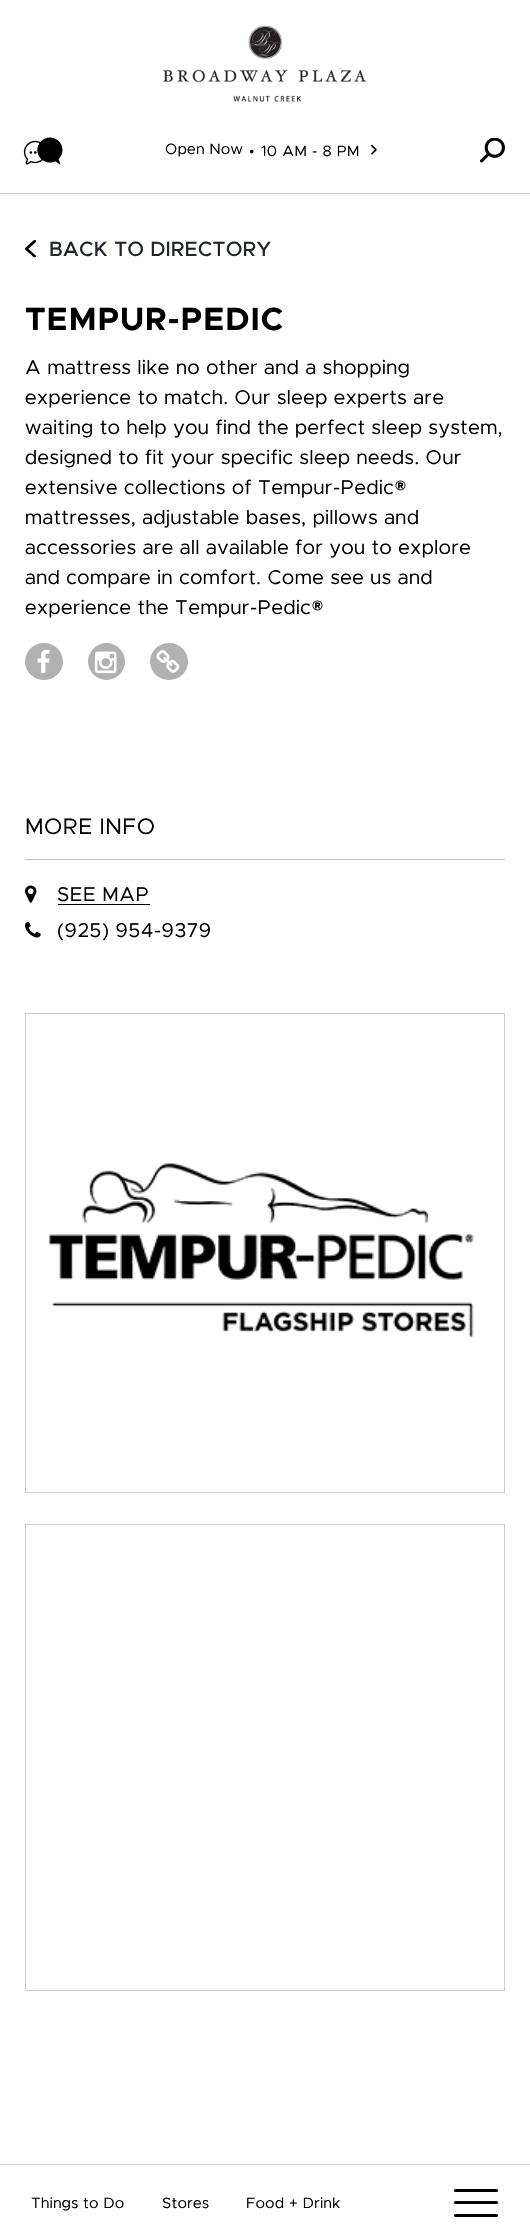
void draw(SkCanvas* canvas) {
	SkPaint fill;
	fill.setAntiAlias(true);
	auto makeFont = [&](const char* family, int weight, float size, bool italic = false) {
		SkFontStyle style(weight, SkFontStyle::kNormal_Width,
			italic ? SkFontStyle::kItalic_Slant : SkFontStyle::kUpright_Slant);
		SkFont result(fontMgr->matchFamilyStyle(family, style), size);
		result.setSubpixel(true);
		return result;
	};
	auto spacedText = [&](const char* s, float x, float y, const SkFont& font, const SkPaint& ink, float letter, float word) {
		std::vector<SkGlyphID> glyphs(font.countText(s, strlen(s), SkTextEncoding::kUTF8));
		std::vector<float> xs(glyphs.size());
		font.textToGlyphs(s, strlen(s), SkTextEncoding::kUTF8, glyphs);
		font.getXPos(glyphs, xs, x);
		float extra = 0;
		for (size_t i = 0; i < glyphs.size(); i++) {
			xs[i] += extra;
			extra += letter + word * (glyphs[i] == font.unicharToGlyph(' '));
		}
		canvas->drawTextBlob(SkTextBlob::MakeFromPosHGlyphs(glyphs, xs, y, font), 0, 0, ink);
	};
	auto box = [&](float l, float t, float r, float b) {
		canvas->drawRect(SkRect::MakeLTRB(l, t, r, b), fill);
	};
	auto roundBox = [&](float l, float t, float r, float b, float radius) {
		canvas->drawRoundRect(SkRect::MakeLTRB(l, t, r, b), radius, radius, fill);
	};
	auto picture = [&](const char* path, float l, float t, float r, float b) {
		auto image = SkImages::DeferredFromEncodedData(SkData::MakeFromFileName(path));
		canvas->drawImageRect(image, SkRect::MakeLTRB(l, t, r, b), SkSamplingOptions());
	};
	canvas->clear(0xFFFFFFFF);
	picture("image0.png", 163, 25, 366, 102);
	fill.setColor(0xFFCCCCCC);
	box(0, 193, 530, 194);
	picture("image1.png", 23, 137, 63, 165);
	picture("image2.png", 371, 144, 377, 155);
	picture("image3.png", 480, 138, 505, 163);
	box(0, 2164, 530, 2165);
	fill.setColor(0xFF000000);
	roundBox(454, 2201, 498, 2204, 1.5f);
	roundBox(454, 2189, 498, 2192, 1.5f);
	roundBox(454, 2214, 498, 2217, 1.5f);
	picture("image4.png", 25, 240, 36, 258);
	fill.setColor(0xFFB1B1B1);
	roundBox(25, 643, 63, 680, 18.5f);
	picture("image5.png", 37, 649, 50, 674);
	canvas->drawCircle(106.5f, 661.5f, 18.5f, fill);
	picture("image6.png", 95, 651, 117, 674);
	roundBox(150, 643, 188, 680, 18.5f);
	picture("image7.png", 156, 650, 180, 673);
	fill.setColor(0xFFBFBFBF);
	box(25, 859, 505, 860);
	picture("image8.png", 25, 885, 37, 903);
	fill.setColor(0xFF000000);
	box(58, 904, 150, 905);
	picture("image9.png", 25, 921, 41, 938);
	fill.setStyle(SkPaint::kStroke_Style);
	fill.setStrokeWidth(1);
	fill.setColor(0xFFCCCCCC);
	canvas->drawRect(SkRect::MakeLTRB(25.5f, 1013.5f, 504.5f, 1492.5f), fill);
	picture("image10.png", 48, 1163, 474, 1338);
	canvas->drawRect(SkRect::MakeLTRB(25.5f, 1524.5f, 504.5f, 1990.5f), fill);
	auto font1 = makeFont("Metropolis", 400, 15);
	fill.setStyle(SkPaint::kFill_Style);
	fill.setColor(0xFF000000);
	spacedText("Open Now", 165, 154, font1, fill, 0.5f, 0);
	spacedText("•", 249, 156, font1, fill, 0.5f, 0);
	spacedText("10 AM - 8 PM", 261, 156, font1, fill, 0.5f, 0);
	spacedText("Things to Do", 31, 2208, font1, fill, 0.5f, 0);
	spacedText("Stores", 162, 2208, font1, fill, 0.5f, 0);
	spacedText("Food + Drink", 246, 2208, font1, fill, 0.5f, 0);
	auto font2 = makeFont("Metropolis", 700, 20);
	fill.setColor(0xFF212529);
	spacedText("BACK TO DIRECTORY", 49, 256, font2, fill, 0.6f, 0);
	auto font3 = makeFont("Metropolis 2", 700, 32.25f);
	fill.setColor(0xFF000000);
	spacedText("TEMPUR-PEDIC", 25, 330, font3, fill, 1, 0);
	auto font4 = makeFont("Metropolis", 400, 20);
	spacedText("A mattress like no other and a shopping", 25, 374, font4, fill, 0.6f, 0);
	spacedText("experience to match. Our sleep experts are", 25, 404, font4, fill, 0.6f, 0);
	spacedText("waiting to help you find the perfect sleep system,", 25, 434, font4, fill, 0.6f, 0);
	spacedText("designed to fit your specific sleep needs. Our", 25, 464, font4, fill, 0.6f, 0);
	spacedText("extensive collections of Tempur-Pedic®", 25, 494, font4, fill, 0.6f, 0);
	spacedText("mattresses, adjustable bases, pillows and", 25, 524, font4, fill, 0.6f, 0);
	spacedText("accessories are all available for you to explore", 25, 554, font4, fill, 0.6f, 0);
	spacedText("and compare in comfort. Come see us and", 25, 584, font4, fill, 0.6f, 0);
	spacedText("experience the Tempur-Pedic®", 25, 614, font4, fill, 0.6f, 0);
	auto font5 = makeFont("Metropolis", 400, 22.5f);
	spacedText("MORE INFO", 25, 834, font5, fill, 0.5f, 0);
	spacedText("SEE MAP", 57, 901, font4, fill, 0.6f, 0);
	spacedText("(925) 954-9379", 57, 937, font4, fill, 0.6f, 0);
}
